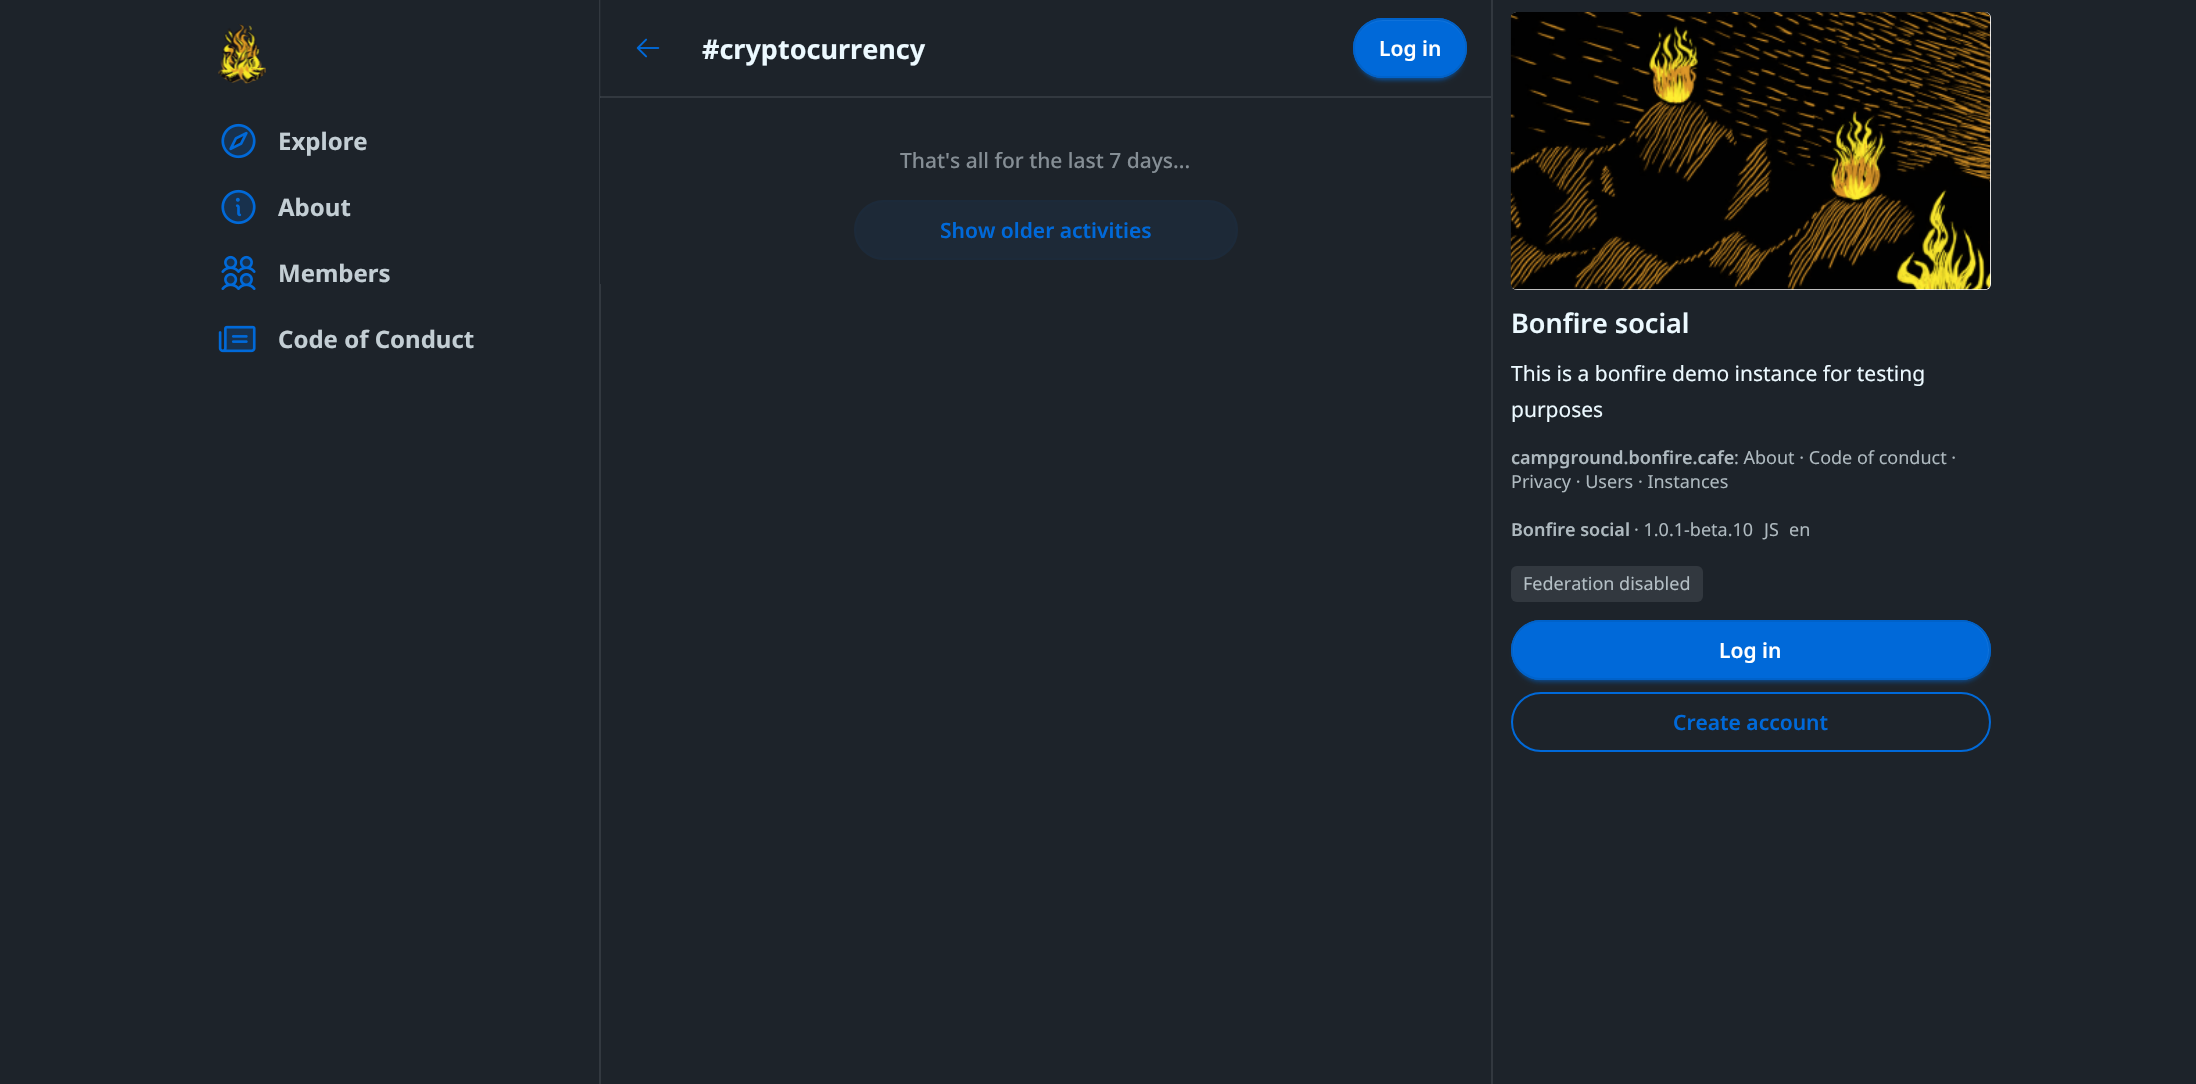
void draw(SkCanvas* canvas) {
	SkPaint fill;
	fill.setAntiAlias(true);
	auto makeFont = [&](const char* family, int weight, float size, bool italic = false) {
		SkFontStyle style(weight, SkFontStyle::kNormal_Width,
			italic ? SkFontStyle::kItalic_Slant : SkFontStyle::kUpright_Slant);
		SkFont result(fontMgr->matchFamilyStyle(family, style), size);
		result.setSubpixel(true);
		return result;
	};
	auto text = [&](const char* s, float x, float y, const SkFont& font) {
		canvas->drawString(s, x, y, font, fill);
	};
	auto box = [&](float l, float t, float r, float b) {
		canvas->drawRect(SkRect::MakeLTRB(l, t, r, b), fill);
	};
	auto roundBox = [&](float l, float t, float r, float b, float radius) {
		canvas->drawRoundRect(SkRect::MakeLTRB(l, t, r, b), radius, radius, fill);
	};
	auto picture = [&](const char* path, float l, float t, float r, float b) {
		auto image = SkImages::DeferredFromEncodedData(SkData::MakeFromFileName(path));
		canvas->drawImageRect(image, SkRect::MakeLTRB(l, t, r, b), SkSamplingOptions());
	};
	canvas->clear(0xFF1D232A);
	fill.setColor(0xFF32383F);
	box(600, 96, 1491, 98);
	picture("image0.png", 218, 24, 266, 84);
	picture("image1.png", 221, 123, 256, 159);
	picture("image2.png", 221, 189, 256, 225);
	picture("image3.png", 221, 255, 256, 290);
	picture("image4.png", 218, 325, 256, 353);
	box(1491, 0, 1493, 1084);
	box(599, 0, 601, 1084);
	fill.setColor(0xFF232930);
	box(600, 0, 601, 98);
	fill.setColor(0xFF373E45);
	box(600, 96, 601, 98);
	picture("image5.png", 636, 38, 660, 58);
	fill.setColor(0x4D0069D9);
	fill.setMaskFilter(SkMaskFilter::MakeBlur(kNormal_SkBlurStyle, 2));
	canvas->drawRoundRect(SkRect::MakeLTRB(1356, 27, 1464, 81), 27, 27, fill);
	fill.setMaskFilter(nullptr);
	fill.setMaskFilter(SkMaskFilter::MakeBlur(kNormal_SkBlurStyle, 1.5f));
	canvas->drawRoundRect(SkRect::MakeLTRB(1356, 26, 1464, 80), 27, 27, fill);
	fill.setMaskFilter(nullptr);
	fill.setColor(0xFF0069D9);
	roundBox(1353, 18, 1467, 78, 30);
	fill.setColor(0xFF0F72DB);
	canvas->drawPath(SkPathBuilder().moveTo(1383, 21).lineTo(1437, 21).cubicTo(1452, 21, 1465, 33, 1465, 49).cubicTo(1465, 64, 1452, 76, 1437, 76).lineTo(1383, 76).cubicTo(1371, 76, 1360, 68, 1356, 58).cubicTo(1360, 69, 1371, 77, 1384, 77).lineTo(1438, 77).cubicTo(1453, 77, 1466, 64, 1466, 48).cubicTo(1466, 33, 1453, 20, 1438, 20).lineTo(1384, 20).cubicTo(1368, 20, 1355, 33, 1355, 48).lineTo(1355, 49).cubicTo(1355, 33, 1368, 21, 1383, 21).close().detach(), fill);
	fill.setStyle(SkPaint::kStroke_Style);
	fill.setStrokeWidth(2);
	fill.setColor(0xFF0062CA);
	canvas->drawRoundRect(SkRect::MakeLTRB(1354, 19, 1466, 77), 29, 29, fill);
	fill.setStyle(SkPaint::kFill_Style);
	fill.setColor(0xFF1D232A);
	box(600, 98, 601, 284);
	fill.setColor(0xFF1D2937);
	canvas->drawRoundRect(SkRect::MakeLTRB(855, 201, 1237, 259), 29, 29, fill);
	fill.setStyle(SkPaint::kStroke_Style);
	fill.setColor(0xFF1C2A3A);
	canvas->drawRoundRect(SkRect::MakeLTRB(855, 201, 1237, 259), 29, 29, fill);
	fill.setStyle(SkPaint::kFill_Style);
	fill.setColor(0xFFFFFFFF);
	roundBox(1511, 12, 1991, 290, 6);
	picture("image6.png", 1510, 12, 1991, 290);
	fill.setColor(0xFF32383F);
	roundBox(1511, 566, 1703, 602, 6);
	fill.setColor(0x4D0069D9);
	fill.setMaskFilter(SkMaskFilter::MakeBlur(kNormal_SkBlurStyle, 2));
	canvas->drawRoundRect(SkRect::MakeLTRB(1514, 629, 1988, 683), 27, 27, fill);
	fill.setMaskFilter(nullptr);
	fill.setMaskFilter(SkMaskFilter::MakeBlur(kNormal_SkBlurStyle, 1.5f));
	canvas->drawRoundRect(SkRect::MakeLTRB(1514, 627, 1988, 681), 27, 27, fill);
	fill.setMaskFilter(nullptr);
	fill.setColor(0xFF0069D9);
	roundBox(1511, 620, 1991, 680, 30);
	fill.setColor(0xFF0F72DB);
	canvas->drawPath(SkPathBuilder().moveTo(1540, 622).lineTo(1960, 622).cubicTo(1976, 622, 1988, 635, 1988, 650).cubicTo(1988, 666, 1976, 678, 1960, 678).cubicTo(1976, 678, 1989, 665, 1989, 650).cubicTo(1989, 634, 1976, 621, 1960, 621).lineTo(1540, 621).cubicTo(1525, 621, 1512, 634, 1512, 650).cubicTo(1512, 659, 1517, 668, 1524, 673).cubicTo(1504, 658, 1514, 622, 1540, 622).close().detach(), fill);
	fill.setStyle(SkPaint::kStroke_Style);
	fill.setColor(0xFF0062CA);
	canvas->drawRoundRect(SkRect::MakeLTRB(1512, 621, 1990, 679), 29, 29, fill);
	fill.setColor(0xFF0069D9);
	canvas->drawRoundRect(SkRect::MakeLTRB(1512, 693, 1990, 751), 29, 29, fill);
	auto font1 = makeFont("Noto Sans", 700, 24);
	fill.setStyle(SkPaint::kFill_Style);
	fill.setColor(0xFFC3CED4);
	text("Explore", 278, 150, font1);
	text("About", 278, 216, font1);
	text("Members", 278, 282, font1);
	text("Code of Conduct", 278, 348, font1);
	auto font2 = makeFont("Noto Sans", 700, 27);
	fill.setColor(0xFFECF9FF);
	text("#cryptocurrency", 702, 59, font2);
	auto font3 = makeFont("Noto Sans", 600, 21);
	fill.setColor(0xFFFFFFFF);
	text("Log in", 1379, 56, font3);
	auto font4 = makeFont("Noto Sans", 500, 21);
	fill.setColor(0xFF858E95);
	text("That's all for the last 7 days...", 900, 168, font4);
	fill.setColor(0xFF0069D9);
	text("Show older activities", 940, 238, font3);
	auto font5 = makeFont("Noto Sans", 600, 27);
	fill.setColor(0xFFECF9FF);
	text("Bonfire social", 1511, 333, font5);
	auto font6 = makeFont("Noto Sans", 400, 21);
	text("This is a bonfire demo instance for testing", 1511, 381, font6);
	text("purposes", 1511, 417, font6);
	auto font7 = makeFont("Noto Sans", 600, 18);
	fill.setColor(0xFFAEB9BF);
	text("campground.bonfire.cafe", 1511, 464, font7);
	auto font8 = makeFont("Noto Sans", 400, 18);
	text(": About · Code of conduct ·", 1734, 464, font8);
	text("Privacy · Users · Instances", 1511, 488, font8);
	text("Bonfire social", 1511, 536, font7);
	text("· 1.0.1-beta.10", 1634, 536, font8);
	text("JS", 1764, 536, font8);
	text("en", 1789, 536, font8);
	fill.setColor(0xFFB4BFC5);
	text("Federation disabled", 1523, 590, font8);
	fill.setColor(0xFFFFFFFF);
	text("Log in", 1719, 658, font3);
	fill.setColor(0xFF0069D9);
	text("Create account", 1673, 730, font3);
}
